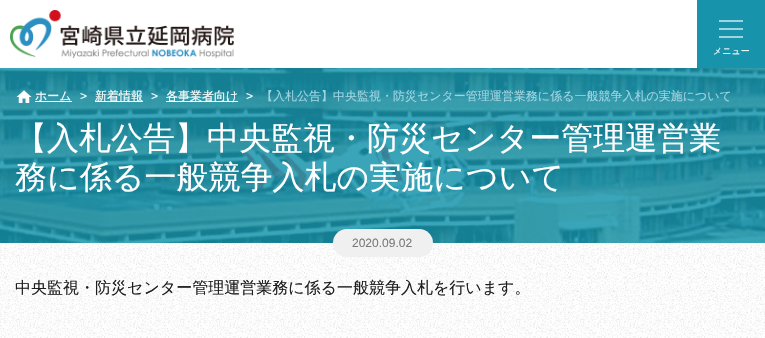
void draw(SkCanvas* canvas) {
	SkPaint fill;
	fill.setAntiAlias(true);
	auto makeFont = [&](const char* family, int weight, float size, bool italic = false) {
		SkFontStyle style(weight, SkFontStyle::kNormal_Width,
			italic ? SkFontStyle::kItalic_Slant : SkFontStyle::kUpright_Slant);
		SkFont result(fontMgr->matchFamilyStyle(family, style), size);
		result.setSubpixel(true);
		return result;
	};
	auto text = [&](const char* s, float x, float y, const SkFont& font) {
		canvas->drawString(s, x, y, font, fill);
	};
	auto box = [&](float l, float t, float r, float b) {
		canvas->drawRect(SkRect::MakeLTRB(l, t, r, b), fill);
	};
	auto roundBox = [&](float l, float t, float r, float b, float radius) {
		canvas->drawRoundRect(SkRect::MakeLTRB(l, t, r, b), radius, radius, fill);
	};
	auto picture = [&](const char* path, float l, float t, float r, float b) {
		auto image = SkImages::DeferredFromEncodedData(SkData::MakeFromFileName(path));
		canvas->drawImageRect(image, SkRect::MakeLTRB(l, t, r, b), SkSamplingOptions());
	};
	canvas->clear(0xFFFFFFFF);
	picture("image0.png", 10, 10, 234, 58);
	fill.setColor(0xFF1794AC);
	box(697, 0, 765, 68);
	fill.setColor(0xFFA1D4E2);
	box(719, 20, 743, 22);
	box(719, 28, 743, 30);
	box(719, 36, 743, 38);
	picture("image1.png", 0, 68, 765, 243);
	picture("image2.png", 16, 90, 32, 103);
	fill.setColor(0xFFFFFFFF);
	box(35, 101, 72, 102);
	box(95, 101, 143, 102);
	box(166, 101, 238, 102);
	picture("image3.png", 0, 243, 765, 338);
	fill.setColor(0xFFF0F0F0);
	roundBox(333, 229, 433, 257, 14);
	auto font1 = makeFont("WenQuanYi Zen Hei", 500, 9);
	fill.setColor(0xFFFFFFFF);
	text("メニュー", 713, 54, font1);
	auto font2 = makeFont("WenQuanYi Zen Hei", 500, 12);
	text("ホーム", 35, 100, font2);
	auto font3 = makeFont("Liberation Sans", 400, 12);
	text(">", 80, 100, font3);
	text("新着情報", 95, 100, font2);
	text(">", 151, 100, font3);
	text("各事業者向け", 166, 100, font2);
	text(">", 246, 100, font3);
	fill.setColor(0xFFA1D4E2);
	text("【入札公告】中央監視・防災センター管理運営業務に係る一般競争入札の実施について", 261, 100, font2);
	auto font4 = makeFont("WenQuanYi Zen Hei", 500, 32);
	fill.setColor(0xFFFFFFFF);
	text("【入札公告】中央監視・防災センター管理運営業", 15, 149, font4);
	text("務に係る一般競争入札の実施について", 15, 188, font4);
	fill.setColor(0xFF7A7A7A);
	text("2020.09.02", 352, 247, font3);
	auto font5 = makeFont("WenQuanYi Zen Hei", 500, 16);
	fill.setColor(0xFF1E1E1E);
	text("中央監視・防災センター管理運営業務に係る一般競争入札を行います。", 15, 293, font5);
}
